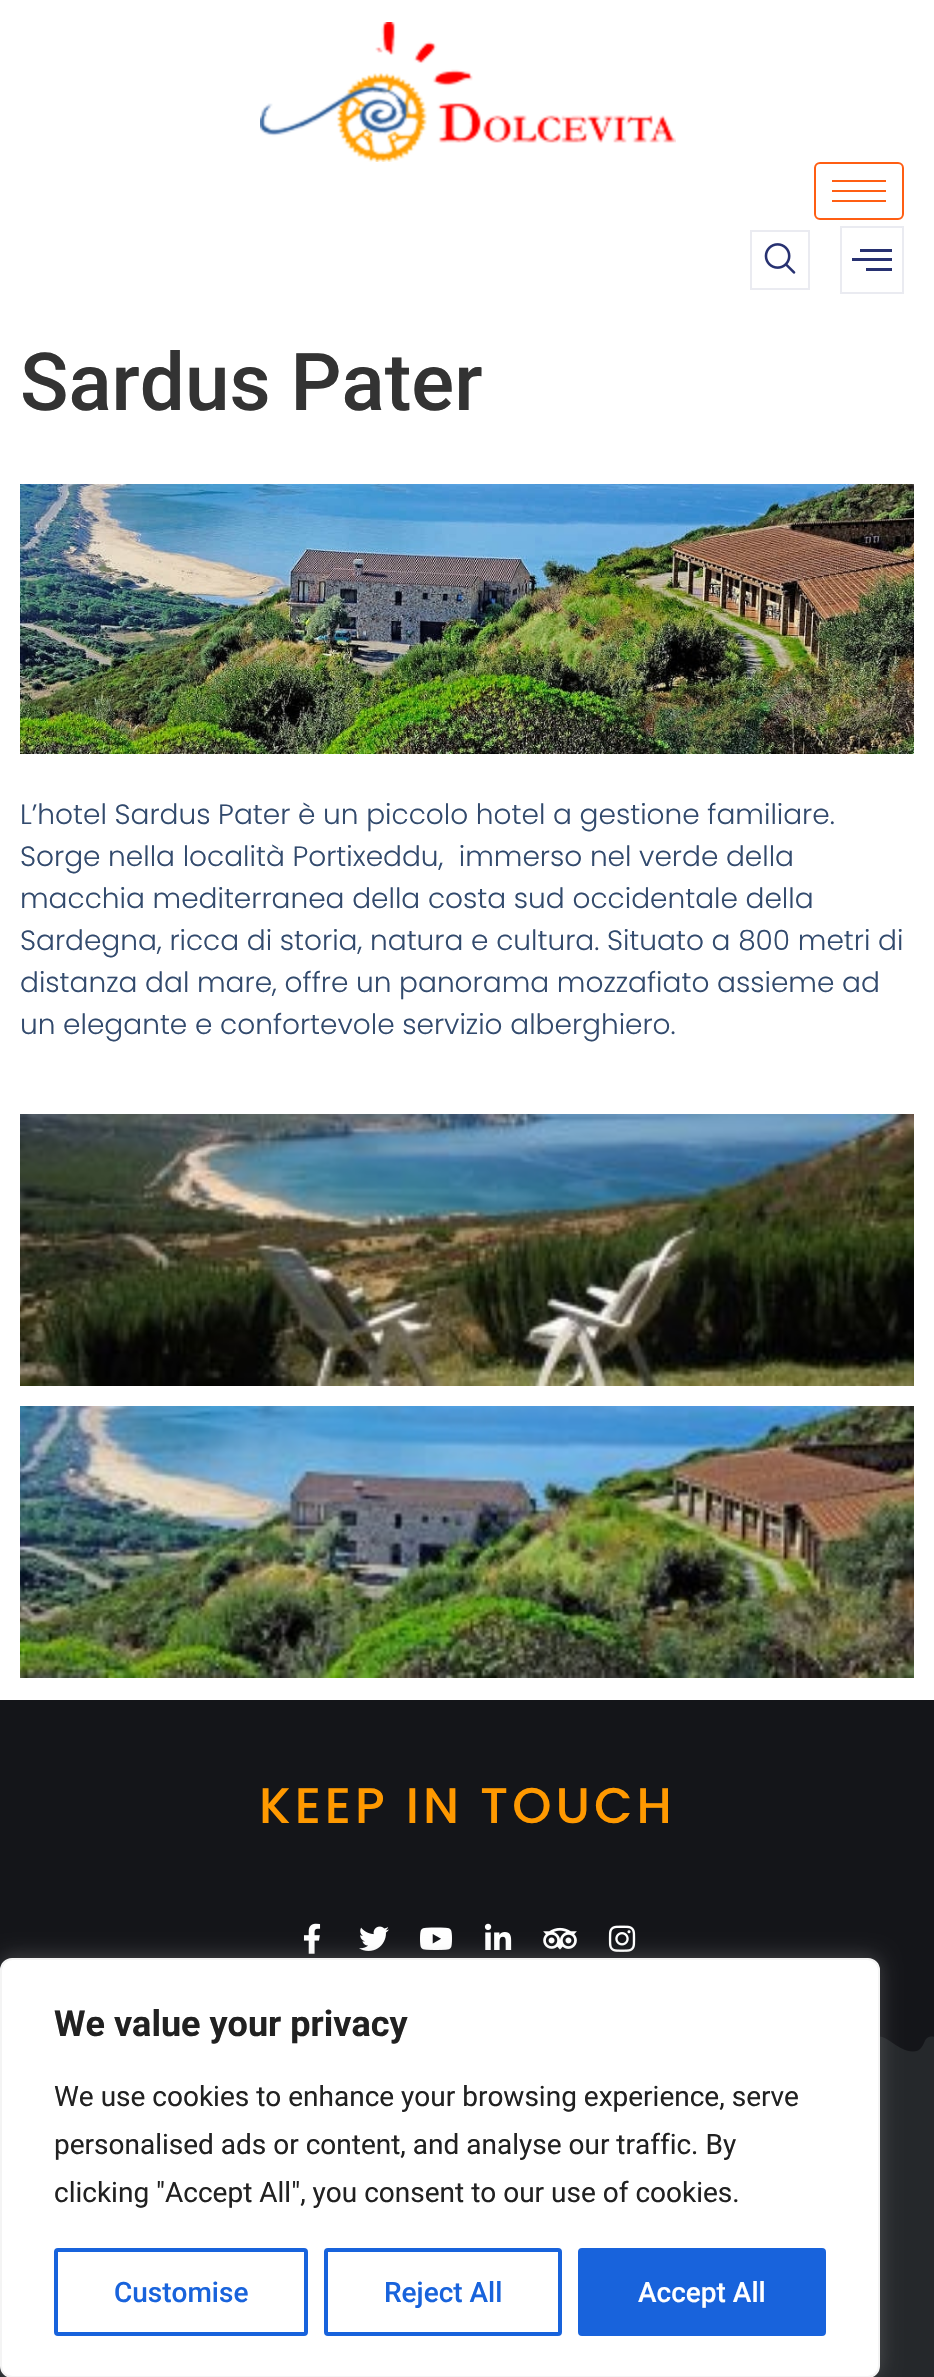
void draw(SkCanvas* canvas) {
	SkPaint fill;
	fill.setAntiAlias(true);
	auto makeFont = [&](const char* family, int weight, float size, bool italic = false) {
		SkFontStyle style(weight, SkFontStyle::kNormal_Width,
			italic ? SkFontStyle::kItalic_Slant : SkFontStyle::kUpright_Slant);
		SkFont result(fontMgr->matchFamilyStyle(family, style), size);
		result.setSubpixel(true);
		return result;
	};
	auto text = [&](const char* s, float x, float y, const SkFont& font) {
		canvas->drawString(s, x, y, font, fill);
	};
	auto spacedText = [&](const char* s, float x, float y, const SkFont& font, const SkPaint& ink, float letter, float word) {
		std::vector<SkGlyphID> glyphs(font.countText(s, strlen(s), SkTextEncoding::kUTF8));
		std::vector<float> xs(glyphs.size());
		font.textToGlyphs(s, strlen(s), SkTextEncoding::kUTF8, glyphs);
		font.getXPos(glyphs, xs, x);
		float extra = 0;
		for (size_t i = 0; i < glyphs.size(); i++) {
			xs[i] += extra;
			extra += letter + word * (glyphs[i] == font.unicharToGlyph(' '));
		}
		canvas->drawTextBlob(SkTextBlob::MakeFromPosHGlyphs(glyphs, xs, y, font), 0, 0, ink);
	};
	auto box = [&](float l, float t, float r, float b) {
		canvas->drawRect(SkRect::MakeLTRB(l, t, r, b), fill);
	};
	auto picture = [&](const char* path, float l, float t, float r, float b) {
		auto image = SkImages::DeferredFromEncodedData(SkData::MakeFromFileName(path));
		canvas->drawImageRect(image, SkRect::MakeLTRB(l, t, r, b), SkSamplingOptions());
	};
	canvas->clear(0xFFFFFFFF);
	picture("image0.png", 260, 22, 676, 162);
	fill.setStyle(SkPaint::kStroke_Style);
	fill.setStrokeWidth(2);
	fill.setColor(0xFFFF5E13);
	canvas->drawRoundRect(SkRect::MakeLTRB(815, 163, 903, 219), 5, 5, fill);
	fill.setStyle(SkPaint::kFill_Style);
	box(832, 180, 886, 182);
	box(832, 190, 886, 192);
	box(832, 200, 886, 202);
	fill.setStyle(SkPaint::kStroke_Style);
	fill.setColor(0xFFEAEBF1);
	canvas->drawRect(SkRect::MakeLTRB(751, 231, 809, 289), fill);
	picture("image1.png", 764, 243, 796, 274);
	canvas->drawRect(SkRect::MakeLTRB(841, 227, 903, 293), fill);
	fill.setStyle(SkPaint::kFill_Style);
	fill.setColor(0xFF273171);
	canvas->drawPath(SkPathBuilder().moveTo(852, 261).lineTo(892, 261).lineTo(892, 258).lineTo(852, 258).close().moveTo(866, 271).lineTo(892, 271).lineTo(892, 268).lineTo(866, 268).close().moveTo(860, 249).lineTo(860, 252).lineTo(892, 252).lineTo(892, 249).close().detach(), fill);
	picture("image2.png", 20, 484, 914, 754);
	picture("image3.png", 20, 1114, 914, 1386);
	picture("image4.png", 20, 1406, 914, 1678);
	fill.setColor(0xFF141519);
	box(0, 1700, 934, 2034);
	picture("image5.png", 303, 1923, 321, 1954);
	picture("image6.png", 359, 1926, 389, 1951);
	picture("image7.png", 420, 1927, 452, 1950);
	picture("image8.png", 484, 1923, 512, 1950);
	picture("image9.png", 543, 1927, 577, 1950);
	picture("image10.png", 608, 1925, 636, 1952);
	fill.setColor(0xFF25282B);
	box(0, 2036, 934, 2377);
	picture("image11.png", 880, 2034, 934, 2052);
	fill.setColor(0x4DACABAB);
	fill.setMaskFilter(SkMaskFilter::MakeBlur(kNormal_SkBlurStyle, 10));
	canvas->drawRoundRect(SkRect::MakeLTRB(0, 1956, 880, 2376), 12, 12, fill);
	fill.setMaskFilter(nullptr);
	fill.setColor(0xFFFFFFFF);
	canvas->drawRoundRect(SkRect::MakeLTRB(1, 1959, 879, 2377), 11, 11, fill);
	fill.setStyle(SkPaint::kStroke_Style);
	fill.setColor(0xFFF4F4F4);
	canvas->drawRoundRect(SkRect::MakeLTRB(1, 1959, 879, 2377), 11, 11, fill);
	fill.setStrokeWidth(4);
	fill.setColor(0xFF1863DC);
	canvas->drawRoundRect(SkRect::MakeLTRB(56, 2250, 306, 2334), 2, 2, fill);
	canvas->drawRoundRect(SkRect::MakeLTRB(326, 2250, 560, 2334), 2, 2, fill);
	fill.setStyle(SkPaint::kFill_Style);
	canvas->drawRoundRect(SkRect::MakeLTRB(580, 2250, 824, 2334), 2, 2, fill);
	fill.setStyle(SkPaint::kStroke_Style);
	canvas->drawRoundRect(SkRect::MakeLTRB(580, 2250, 824, 2334), 2, 2, fill);
	auto font1 = makeFont("Roboto", 500, 80);
	fill.setStyle(SkPaint::kFill_Style);
	fill.setColor(0xFF333333);
	text("Sardus Pater", 20, 410, font1);
	auto font2 = makeFont("Poppins", 300, 28);
	fill.setColor(0xFF324A6D);
	text("L’hotel Sardus Pater è un piccolo hotel a gestione familiare.", 20, 824, font2);
	text("Sorge nella località Portixeddu,  immerso nel verde della", 20, 866, font2);
	text("macchia mediterranea della costa sud occidentale della", 20, 908, font2);
	text("Sardegna, ricca di storia, natura e cultura. Situato a 800 metri di", 20, 950, font2);
	text("distanza dal mare, offre un panorama mozzafiato assieme ad", 20, 992, font2);
	text("un elegante e confortevole servizio alberghiero.", 20, 1034, font2);
	auto font3 = makeFont("Poppins", 500, 50);
	fill.setColor(0xFFFF9900);
	spacedText("KEEP IN TOUCH", 259, 1823, font3, fill, 4, 0);
	auto font4 = makeFont("Roboto", 700, 36);
	fill.setColor(0xFF212121);
	text("We value your privacy", 54, 2036, font4);
	auto font5 = makeFont("Roboto", 400, 28);
	text("We use cookies to enhance your browsing experience, serve", 54, 2106, font5);
	text("personalised ads or content, and analyse our traffic. By", 54, 2154, font5);
	text("clicking \"Accept All\", you consent to our use of cookies.", 54, 2202, font5);
	auto font6 = makeFont("Roboto", 500, 28);
	fill.setColor(0xFF1863DC);
	text("Customise", 114, 2302, font6);
	text("Reject All", 384, 2302, font6);
	fill.setColor(0xFFFFFFFF);
	text("Accept All", 638, 2302, font6);
}
